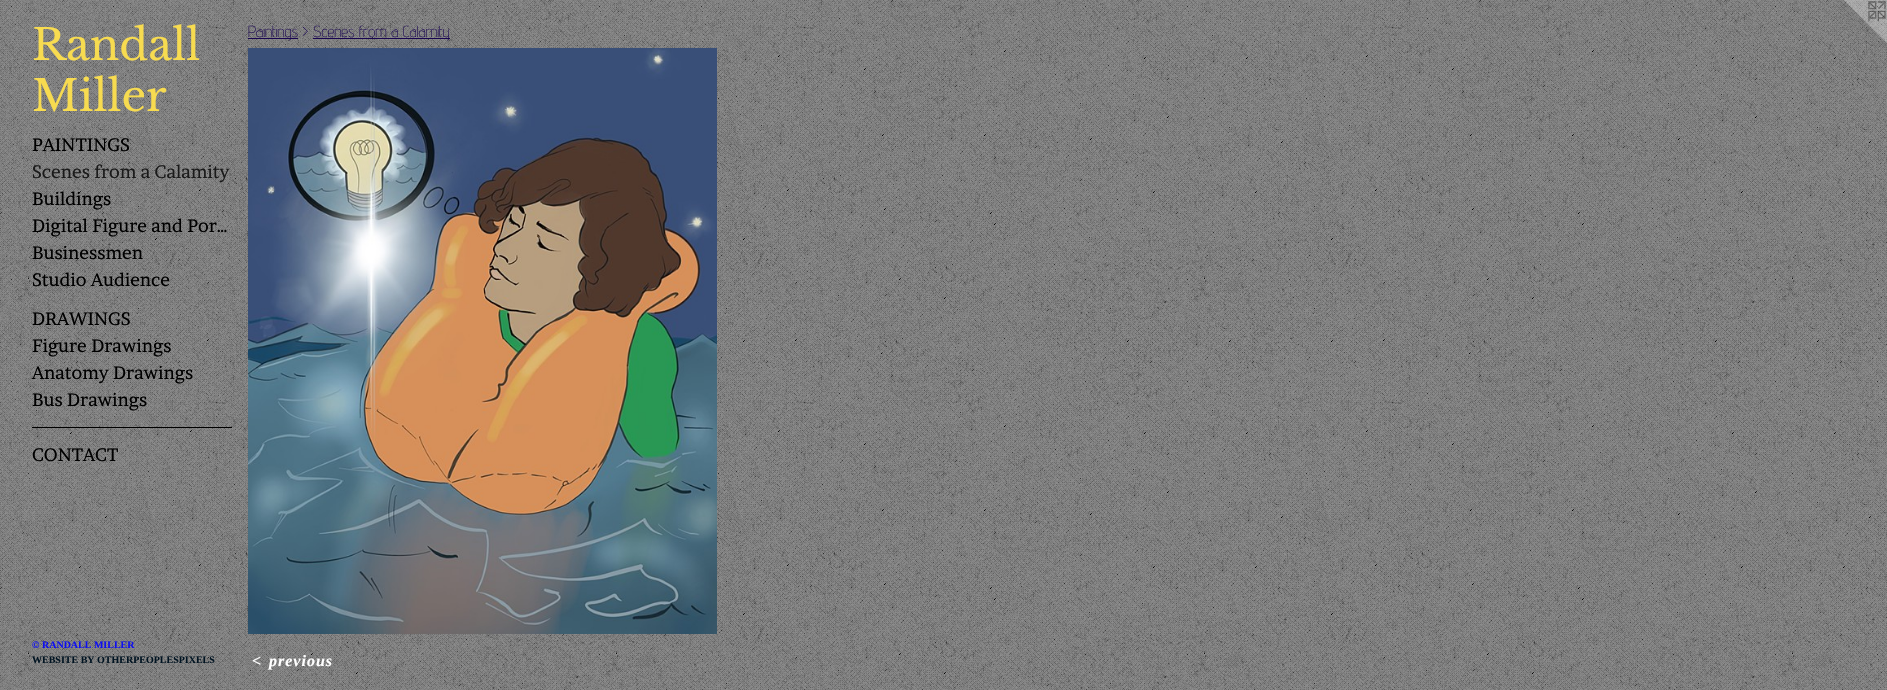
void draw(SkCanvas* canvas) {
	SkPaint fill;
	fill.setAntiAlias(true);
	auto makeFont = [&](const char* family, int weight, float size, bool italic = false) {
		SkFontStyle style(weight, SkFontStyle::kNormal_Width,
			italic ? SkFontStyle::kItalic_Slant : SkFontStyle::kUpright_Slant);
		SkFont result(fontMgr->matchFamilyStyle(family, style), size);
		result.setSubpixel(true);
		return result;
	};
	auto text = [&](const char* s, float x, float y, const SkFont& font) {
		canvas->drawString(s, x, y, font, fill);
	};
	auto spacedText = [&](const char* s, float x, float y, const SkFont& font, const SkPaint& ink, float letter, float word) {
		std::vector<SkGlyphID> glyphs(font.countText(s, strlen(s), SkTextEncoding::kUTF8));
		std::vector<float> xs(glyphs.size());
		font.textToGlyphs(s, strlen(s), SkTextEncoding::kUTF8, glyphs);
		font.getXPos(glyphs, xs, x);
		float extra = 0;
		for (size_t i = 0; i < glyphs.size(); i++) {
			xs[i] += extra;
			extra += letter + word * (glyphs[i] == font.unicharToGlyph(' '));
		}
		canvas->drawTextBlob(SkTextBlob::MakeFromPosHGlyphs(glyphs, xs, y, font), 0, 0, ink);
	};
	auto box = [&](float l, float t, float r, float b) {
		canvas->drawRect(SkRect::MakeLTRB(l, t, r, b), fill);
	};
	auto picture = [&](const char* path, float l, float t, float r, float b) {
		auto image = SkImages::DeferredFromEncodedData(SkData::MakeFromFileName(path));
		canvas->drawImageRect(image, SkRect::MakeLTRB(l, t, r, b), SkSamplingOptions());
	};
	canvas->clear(0xFFFFFFFF);
	picture("image0.png", 0, 0, 1887, 690);
	fill.setColor(0xFF000000);
	box(32, 427, 232, 428);
	fill.setColor(0xFF190551);
	box(248, 38, 298, 39);
	box(313, 38, 450, 39);
	picture("image1.png", 248, 48, 717, 634);
	picture("image2.png", 1840, 0, 1887, 47);
	auto font1 = makeFont("Libre Baskerville", 400, 43);
	fill.setColor(0xFFF7DB50);
	text("Randall", 32, 60, font1);
	text("Miller", 32, 111, font1);
	auto font2 = makeFont("Brawler", 400, 18);
	fill.setColor(0xFF000000);
	text("PAINTINGS", 32, 151, font2);
	fill.setColor(0xFF1A1A1A);
	text("Scenes from a Calamity", 32, 178, font2);
	fill.setColor(0xFF000000);
	text("Buildings", 32, 205, font2);
	text("Digital Figure and Por…", 32, 232, font2);
	text("Businessmen", 32, 259, font2);
	text("Studio Audience", 32, 286, font2);
	text("DRAWINGS", 32, 325, font2);
	text("Figure Drawings", 32, 352, font2);
	text("Anatomy Drawings", 32, 379, font2);
	text("Bus Drawings", 32, 406, font2);
	text("CONTACT", 32, 461, font2);
	auto font3 = makeFont("Liberation Serif", 700, 10);
	fill.setColor(0xFF0D0EF2);
	text("© RANDALL MILLER", 32, 648, font3);
	fill.setColor(0xFF011422);
	text("WEBSITE BY OTHERPEOPLESPIXELS", 32, 663, font3);
	auto font4 = makeFont("Advent Pro", 200, 16);
	fill.setColor(0xFF190551);
	text("Paintings >", 248, 37, font4);
	text("Scenes from a Calamity", 313, 37, font4);
	auto font5 = makeFont("Liberation Serif", 700, 16, true);
	fill.setColor(0xFFFFFFFF);
	spacedText("<", 252, 666, font5, fill, 1, 0);
	spacedText("previous", 269, 666, font5, fill, 1, 0);
}
